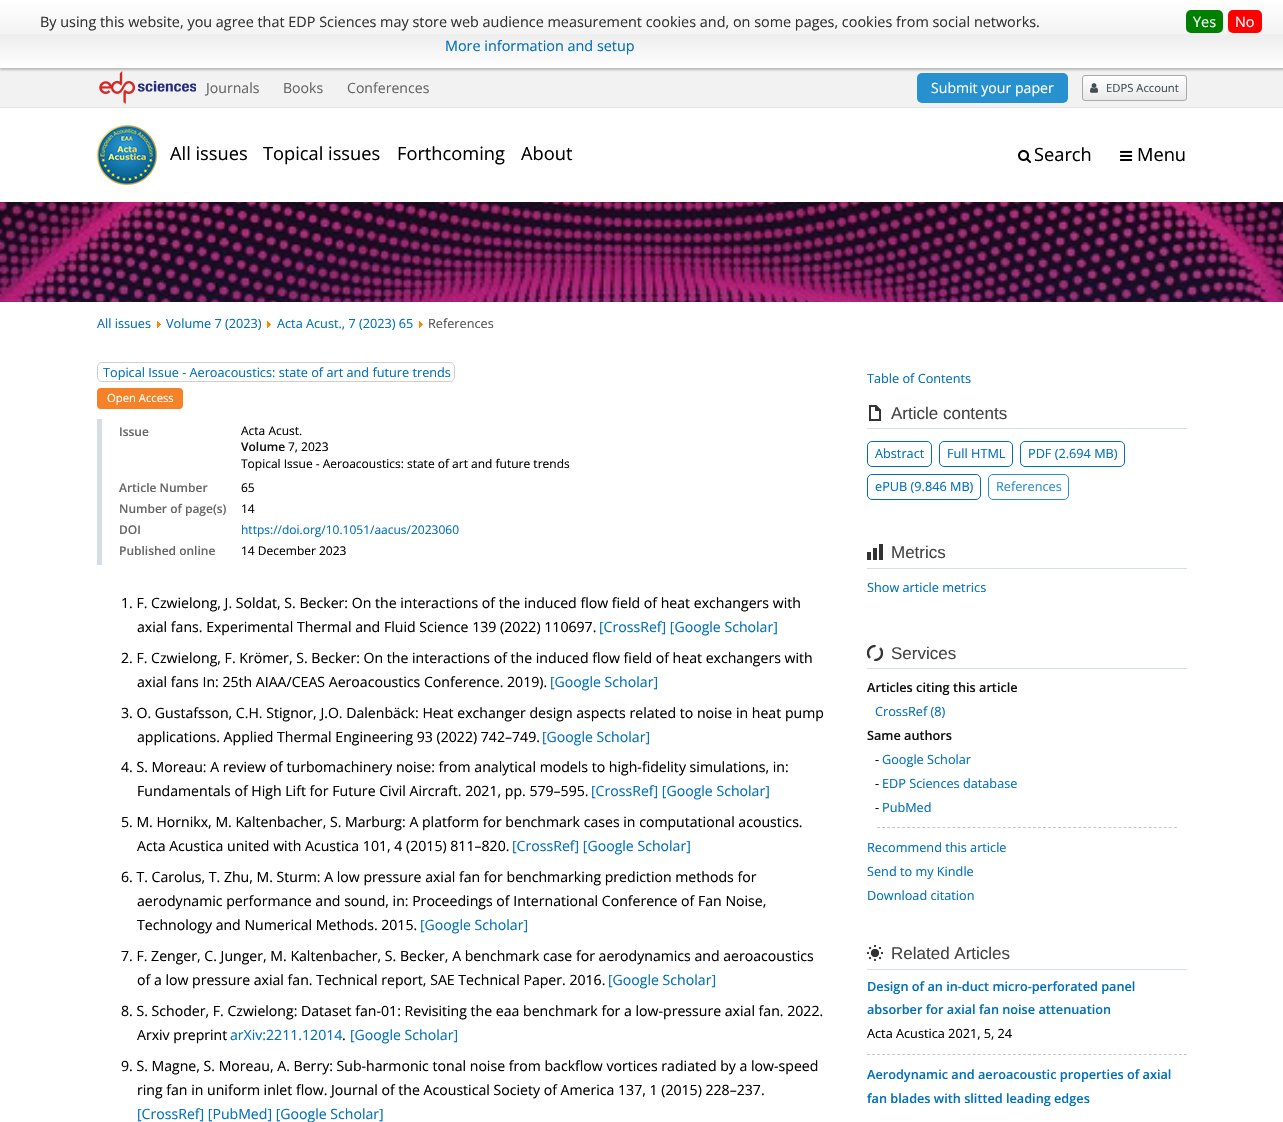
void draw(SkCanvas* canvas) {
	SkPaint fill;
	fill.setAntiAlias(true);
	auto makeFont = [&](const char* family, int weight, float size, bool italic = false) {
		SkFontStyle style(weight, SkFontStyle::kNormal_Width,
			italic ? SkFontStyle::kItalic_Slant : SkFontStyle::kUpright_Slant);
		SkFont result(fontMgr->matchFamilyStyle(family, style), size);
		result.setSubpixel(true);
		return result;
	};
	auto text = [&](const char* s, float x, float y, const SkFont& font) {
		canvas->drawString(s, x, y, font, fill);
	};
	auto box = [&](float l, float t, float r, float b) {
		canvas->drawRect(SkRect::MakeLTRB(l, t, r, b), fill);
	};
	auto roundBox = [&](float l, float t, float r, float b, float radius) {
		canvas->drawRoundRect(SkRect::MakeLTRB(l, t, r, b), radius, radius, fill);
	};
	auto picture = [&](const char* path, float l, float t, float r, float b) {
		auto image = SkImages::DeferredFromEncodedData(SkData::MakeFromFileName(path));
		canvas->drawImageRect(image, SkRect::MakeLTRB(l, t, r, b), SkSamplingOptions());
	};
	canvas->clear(0xFFFFFFFF);
	fill.setColor(0xFFF2F2F2);
	box(0, 68, 1283, 107);
	picture("image0.png", 99, 71, 196, 104);
	fill.setColor(0xFF2691CE);
	roundBox(917, 73, 1068, 103, 5);
	fill.setColor(0x807F7F7F);
	fill.setMaskFilter(SkMaskFilter::MakeBlur(kNormal_SkBlurStyle, 1));
	canvas->drawRect(SkRect::MakeLTRB(0, 2, 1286, 70), fill);
	fill.setMaskFilter(nullptr);
	{
		const SkColor colors[] = {0xFFFFFFFF, 0xFFF3F3F3, 0xFFEDEDED, 0xFFFFFFFF};
		const float stops[] = {0, 0.5f, 0.51f, 1};
		const SkPoint ends[] = {{651, 0}, {651, 68}};
		fill.setShader(SkGradientShader::MakeLinear(ends, colors, stops, 4, SkTileMode::kClamp));
		fill.setAlpha(255);
	}
	box(0, 0, 1283, 68);
	fill.setShader(nullptr);
	fill.setColor(0xFF008000);
	roundBox(1186, 10, 1223, 33, 5);
	fill.setColor(0xFFFF0000);
	roundBox(1228, 10, 1262, 33, 5);
	fill.setColor(0xFFE2E2E2);
	box(0, 107, 1283, 108);
	canvas->save();
	canvas->clipPath(SkPathBuilder().moveTo(1085, 75).lineTo(1184, 75).cubicTo(1185.5f, 75, 1187, 76.5f, 1187, 78).lineTo(1187, 98).cubicTo(1187, 99.5f, 1185.5f, 101, 1184, 101).lineTo(1085, 101).cubicTo(1083.5f, 101, 1082, 99.5f, 1082, 98).lineTo(1082, 78).cubicTo(1082, 76.5f, 1083.5f, 75, 1085, 75).close().detach(), true);
	{
		const SkColor colors[] = {0xFFFFFFFF, 0xFFE9E9E9};
		const float stops[] = {0, 1};
		const SkPoint ends[] = {{1135, 76}, {1135, 100}};
		fill.setShader(SkGradientShader::MakeLinear(ends, colors, stops, 2, SkTileMode::kClamp));
		fill.setAlpha(255);
	}
	box(1082, 76, 1187, 100);
	canvas->restore();
	fill.setStyle(SkPaint::kStroke_Style);
	fill.setStrokeWidth(1);
	fill.setShader(nullptr);
	fill.setColor(0xFFAAAAAA);
	canvas->drawRoundRect(SkRect::MakeLTRB(1082.5f, 75.5f, 1186.5f, 100.5f), 2.5f, 2.5f, fill);
	picture("image1.png", 1090, 83, 1098, 93);
	picture("image2.png", 97, 125, 157, 185);
	picture("image3.png", 1018, 149, 1031, 163);
	picture("image4.png", 1120, 150, 1133, 161);
	picture("image5.png", 0, 202, 1283, 302);
	picture("image6.png", 157, 321, 161, 328);
	picture("image6.png", 267, 321, 271, 328);
	picture("image6.png", 419, 321, 423, 328);
	fill.setColor(0xFFCFCFCF);
	canvas->drawRoundRect(SkRect::MakeLTRB(97.5f, 362.5f, 454.5f, 381.5f), 4.5f, 4.5f, fill);
	fill.setStyle(SkPaint::kFill_Style);
	fill.setColor(0xFFF58229);
	roundBox(97, 388, 183, 409, 4);
	fill.setColor(0xFFD5DEE5);
	box(97, 419, 102, 565);
	box(867, 428, 1187, 429);
	picture("image7.png", 869, 405, 881, 421);
	fill.setStyle(SkPaint::kStroke_Style);
	fill.setColor(0xFF0070BB);
	canvas->drawRoundRect(SkRect::MakeLTRB(867.5f, 441.5f, 931.5f, 466.5f), 4.5f, 4.5f, fill);
	canvas->drawRoundRect(SkRect::MakeLTRB(939.5f, 441.5f, 1012.5f, 466.5f), 4.5f, 4.5f, fill);
	canvas->drawRoundRect(SkRect::MakeLTRB(1020.5f, 441.5f, 1124.5f, 466.5f), 4.5f, 4.5f, fill);
	canvas->drawRoundRect(SkRect::MakeLTRB(867.5f, 474.5f, 980.5f, 499.5f), 4.5f, 4.5f, fill);
	fill.setColor(0xFF2691CE);
	canvas->drawRoundRect(SkRect::MakeLTRB(988.5f, 474.5f, 1068.5f, 499.5f), 4.5f, 4.5f, fill);
	fill.setStyle(SkPaint::kFill_Style);
	fill.setColor(0xFFD5DEE5);
	box(867, 568, 1187, 569);
	picture("image8.png", 867, 544, 883, 560);
	box(867, 668, 1187, 669);
	picture("image9.png", 867, 645, 883, 661);
	fill.setStyle(SkPaint::kStroke_Style);
	fill.setColor(0xFFC3C8CE);
	fill.setPathEffect(SkDashPathEffect::Make({{3, 2.03f}}, 0));
	canvas->drawPath(SkPathBuilder().moveTo(877, 827.5f).lineTo(1177, 827.5f).detach(), fill);
	fill.setPathEffect(nullptr);
	fill.setStyle(SkPaint::kFill_Style);
	fill.setColor(0xFFD5DEE5);
	box(867, 969, 1187, 970);
	picture("image10.png", 867, 945, 883, 961);
	fill.setStyle(SkPaint::kStroke_Style);
	fill.setColor(0xFFC3C8CE);
	fill.setPathEffect(SkDashPathEffect::Make({{3, 2.03f}}, 0));
	canvas->drawPath(SkPathBuilder().moveTo(867, 1054.5f).lineTo(1187, 1054.5f).detach(), fill);
	fill.setPathEffect(nullptr);
	auto font1 = makeFont("Open Sans", 400, 14.4f);
	fill.setStyle(SkPaint::kFill_Style);
	fill.setColor(0xFF333333);
	text("By using this website, you agree that EDP Sciences may store web audience measurement cookies and, on some pages, cookies from social networks.", 40, 27, font1);
	fill.setColor(0xFF0070BB);
	text("More information and setup", 445, 51, font1);
	fill.setColor(0xFFFFFFFF);
	text("Yes", 1193, 27, font1);
	text("No", 1235, 27, font1);
	auto font2 = makeFont("Open Sans", 400, 14.1f);
	fill.setColor(0xFF666666);
	text("Journals", 206, 93, font2);
	text("Books", 283, 93, font2);
	text("Conferences", 347, 93, font2);
	fill.setColor(0xFFFFFFFF);
	text("Submit your paper", 931, 93, font2);
	auto font3 = makeFont("Open Sans", 400, 11.25f);
	fill.setColor(0xFF414E54);
	text("EDPS Account", 1106, 92, font3);
	auto font4 = makeFont("Open Sans", 400, 18.25f);
	fill.setColor(0xFF000000);
	text("All issues", 170, 160, font4);
	text("Topical issues", 263, 160, font4);
	text("Forthcoming", 397, 160, font4);
	text("About", 521, 160, font4);
	text("Search", 1034, 161, font4);
	text("Menu", 1137, 161, font4);
	auto font5 = makeFont("Open Sans", 400, 12.7f);
	fill.setColor(0xFF0070BB);
	text("All issues", 97, 328, font5);
	text("Volume 7 (2023)", 166, 328, font5);
	text("Acta Acust., 7 (2023) 65", 277, 328, font5);
	fill.setColor(0xFF555555);
	text("References", 428, 328, font5);
	fill.setColor(0xFF0070BB);
	text("Topical Issue - Aeroacoustics: state of art and future trends", 103, 377, font5);
	fill.setColor(0xFFFFFFFF);
	text("Open Access", 107, 402, font3);
	auto font6 = makeFont("Open Sans", 600, 12);
	fill.setColor(0xFF666666);
	text("Issue", 119, 436, font6);
	auto font7 = makeFont("Open Sans", 400, 12);
	fill.setColor(0xFF000000);
	text("Acta Acust.", 241, 435, font7);
	fill.setColor(0xFF111111);
	text("Volume", 241, 451, font6);
	fill.setColor(0xFF000000);
	text("7, 2023", 288, 451, font7);
	text("Topical Issue - Aeroacoustics: state of art and future trends", 241, 468, font7);
	fill.setColor(0xFF666666);
	text("Article Number", 119, 492, font6);
	fill.setColor(0xFF000000);
	text("65", 241, 492, font7);
	fill.setColor(0xFF666666);
	text("Number of page(s)", 119, 513, font6);
	fill.setColor(0xFF000000);
	text("14", 241, 513, font7);
	fill.setColor(0xFF666666);
	text("DOI", 119, 534, font6);
	fill.setColor(0xFF0070BB);
	text("https://doi.org/10.1051/aacus/2023060", 241, 534, font7);
	fill.setColor(0xFF666666);
	text("Published online", 119, 555, font6);
	fill.setColor(0xFF000000);
	text("14 December 2023", 241, 555, font7);
	text("1. F. Czwielong, J. Soldat, S. Becker: On the interactions of the induced flow field of heat exchangers with", 121, 608, font2);
	text("axial fans. Experimental Thermal and Fluid Science 139 (2022) 110697.", 137, 632, font2);
	fill.setColor(0xFF0070BB);
	text("[CrossRef] [Google Scholar]", 599, 632, font2);
	fill.setColor(0xFF000000);
	text("2. F. Czwielong, F. Krömer, S. Becker: On the interactions of the induced flow field of heat exchangers with", 121, 663, font2);
	text("axial fans In: 25th AIAA/CEAS Aeroacoustics Conference. 2019).", 137, 687, font2);
	fill.setColor(0xFF0070BB);
	text("[Google Scholar]", 550, 687, font2);
	fill.setColor(0xFF000000);
	text("3. O. Gustafsson, C.H. Stignor, J.O. Dalenbäck: Heat exchanger design aspects related to noise in heat pump", 121, 718, font2);
	text("applications. Applied Thermal Engineering 93 (2022) 742–749.", 137, 742, font2);
	fill.setColor(0xFF0070BB);
	text("[Google Scholar]", 542, 742, font2);
	fill.setColor(0xFF000000);
	text("4. S. Moreau: A review of turbomachinery noise: from analytical models to high-fidelity simulations, in:", 121, 772, font2);
	text("Fundamentals of High Lift for Future Civil Aircraft. 2021, pp. 579–595.", 137, 796, font2);
	fill.setColor(0xFF0070BB);
	text("[CrossRef] [Google Scholar]", 591, 796, font2);
	fill.setColor(0xFF000000);
	text("5. M. Hornikx, M. Kaltenbacher, S. Marburg: A platform for benchmark cases in computational acoustics.", 121, 827, font2);
	text("Acta Acustica united with Acustica 101, 4 (2015) 811–820.", 137, 851, font2);
	fill.setColor(0xFF0070BB);
	text("[CrossRef] [Google Scholar]", 512, 851, font2);
	fill.setColor(0xFF000000);
	text("6. T. Carolus, T. Zhu, M. Sturm: A low pressure axial fan for benchmarking prediction methods for", 121, 882, font2);
	text("aerodynamic performance and sound, in: Proceedings of International Conference of Fan Noise,", 137, 906, font2);
	text("Technology and Numerical Methods. 2015.", 137, 930, font2);
	fill.setColor(0xFF0070BB);
	text("[Google Scholar]", 420, 930, font2);
	fill.setColor(0xFF000000);
	text("7. F. Zenger, C. Junger, M. Kaltenbacher, S. Becker, A benchmark case for aerodynamics and aeroacoustics", 121, 961, font2);
	text("of a low pressure axial fan. Technical report, SAE Technical Paper. 2016.", 137, 985, font2);
	fill.setColor(0xFF0070BB);
	text("[Google Scholar]", 608, 985, font2);
	fill.setColor(0xFF000000);
	text("8. S. Schoder, F. Czwielong: Dataset fan-01: Revisiting the eaa benchmark for a low-pressure axial fan. 2022.", 121, 1016, font2);
	text("Arxiv preprint", 137, 1040, font2);
	fill.setColor(0xFF0070BB);
	text("arXiv:2211.12014", 230, 1040, font2);
	fill.setColor(0xFF000000);
	text(".", 342, 1040, font2);
	fill.setColor(0xFF0070BB);
	text("[Google Scholar]", 350, 1040, font2);
	fill.setColor(0xFF000000);
	text("9. S. Magne, S. Moreau, A. Berry: Sub-harmonic tonal noise from backflow vortices radiated by a low-speed", 121, 1071, font2);
	text("ring fan in uniform inlet flow. Journal of the Acoustical Society of America 137, 1 (2015) 228–237.", 137, 1095, font2);
	fill.setColor(0xFF0070BB);
	text("[CrossRef] [PubMed] [Google Scholar]", 137, 1119, font2);
	text("Table of Contents", 867, 383, font5);
	auto font8 = makeFont("Liberation Sans", 400, 17);
	fill.setColor(0xFF444444);
	text("Article contents", 891, 419, font8);
	fill.setColor(0xFF0070BB);
	text("Abstract", 875, 458, font5);
	text("Full HTML", 947, 458, font5);
	text("PDF (2.694 MB)", 1028, 458, font5);
	text("ePUB (9.846 MB)", 875, 491, font5);
	fill.setColor(0xFF2691CE);
	text("References", 996, 491, font5);
	fill.setColor(0xFF444444);
	text("Metrics", 891, 558, font8);
	fill.setColor(0xFF0070BB);
	text("Show article metrics", 867, 592, font5);
	fill.setColor(0xFF444444);
	text("Services", 891, 659, font8);
	auto font9 = makeFont("Open Sans", 600, 12.7f);
	fill.setColor(0xFF111111);
	text("Articles citing this article", 867, 692, font9);
	fill.setColor(0xFF0070BB);
	text("CrossRef (8)", 875, 716, font5);
	fill.setColor(0xFF111111);
	text("Same authors", 867, 740, font9);
	fill.setColor(0xFF000000);
	text("-", 875, 764, font5);
	fill.setColor(0xFF0070BB);
	text("Google Scholar", 882, 764, font5);
	fill.setColor(0xFF000000);
	text("-", 875, 788, font5);
	fill.setColor(0xFF0070BB);
	text("EDP Sciences database", 882, 788, font5);
	fill.setColor(0xFF000000);
	text("-", 875, 812, font5);
	fill.setColor(0xFF0070BB);
	text("PubMed", 882, 812, font5);
	text("Recommend this article", 867, 852, font5);
	text("Send to my Kindle", 867, 876, font5);
	text("Download citation", 867, 900, font5);
	fill.setColor(0xFF444444);
	text("Related Articles", 891, 959, font8);
	fill.setColor(0xFF0070BB);
	text("Design of an in-duct micro-perforated panel", 867, 991, font9);
	text("absorber for axial fan noise attenuation", 867, 1014, font9);
	fill.setColor(0xFF000000);
	text("Acta Acustica 2021, 5, 24", 867, 1038, font5);
	fill.setColor(0xFF0070BB);
	text("Aerodynamic and aeroacoustic properties of axial", 867, 1079, font9);
	text("fan blades with slitted leading edges", 867, 1103, font9);
}
